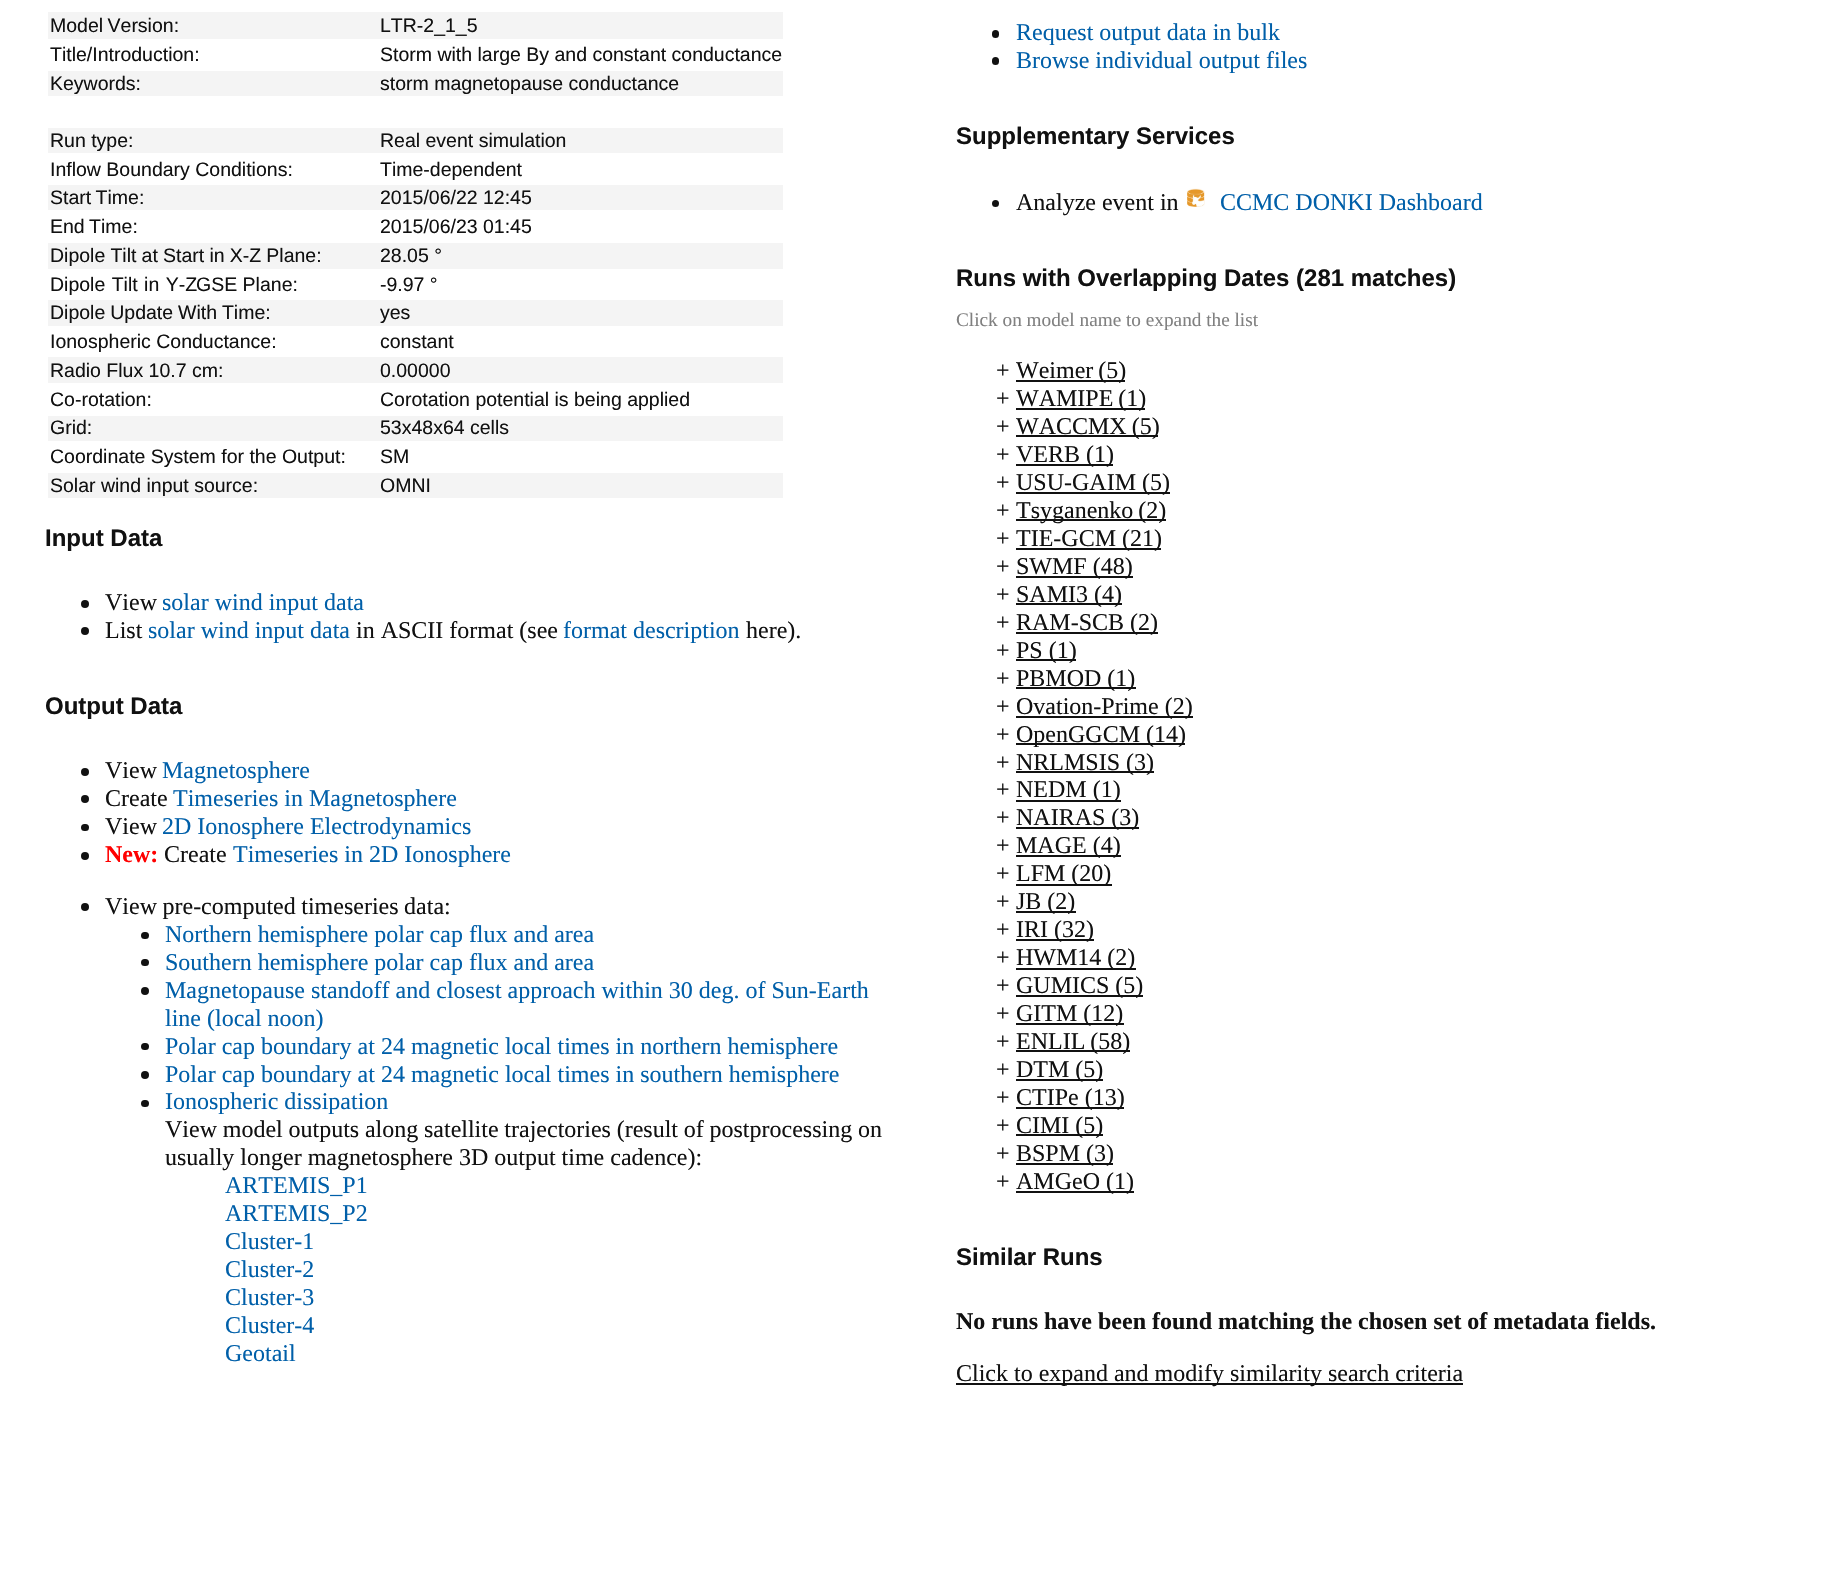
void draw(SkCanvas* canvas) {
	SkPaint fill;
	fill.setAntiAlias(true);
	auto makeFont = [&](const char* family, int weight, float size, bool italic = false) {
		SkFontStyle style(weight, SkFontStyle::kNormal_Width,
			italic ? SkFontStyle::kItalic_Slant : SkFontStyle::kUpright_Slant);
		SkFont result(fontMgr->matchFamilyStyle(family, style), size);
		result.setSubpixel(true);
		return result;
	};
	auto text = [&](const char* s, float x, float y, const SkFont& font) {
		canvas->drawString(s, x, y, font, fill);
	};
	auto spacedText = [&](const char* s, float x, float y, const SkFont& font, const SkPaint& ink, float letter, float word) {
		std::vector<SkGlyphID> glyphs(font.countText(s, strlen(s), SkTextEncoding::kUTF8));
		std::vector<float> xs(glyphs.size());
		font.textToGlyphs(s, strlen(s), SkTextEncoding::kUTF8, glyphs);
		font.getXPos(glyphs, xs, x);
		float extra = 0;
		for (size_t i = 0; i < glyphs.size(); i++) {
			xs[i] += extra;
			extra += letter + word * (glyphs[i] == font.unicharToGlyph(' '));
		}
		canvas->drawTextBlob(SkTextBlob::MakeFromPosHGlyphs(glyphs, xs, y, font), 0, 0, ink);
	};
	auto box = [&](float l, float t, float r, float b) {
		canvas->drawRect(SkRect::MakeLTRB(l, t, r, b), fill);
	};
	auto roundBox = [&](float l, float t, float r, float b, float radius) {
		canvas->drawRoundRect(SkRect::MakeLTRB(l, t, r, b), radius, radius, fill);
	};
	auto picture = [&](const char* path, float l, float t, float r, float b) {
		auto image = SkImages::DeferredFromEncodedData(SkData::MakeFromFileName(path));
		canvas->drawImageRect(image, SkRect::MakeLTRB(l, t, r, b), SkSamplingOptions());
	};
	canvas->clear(0xFFFFFFFF);
	fill.setColor(0xFFF4F4F4);
	box(48, 12, 783, 39);
	box(48, 71, 783, 96);
	box(48, 128, 783, 153);
	box(48, 185, 783, 210);
	box(48, 243, 783, 269);
	box(48, 300, 783, 326);
	box(48, 357, 783, 383);
	box(48, 416, 783, 441);
	box(48, 473, 783, 498);
	fill.setColor(0xFF111111);
	roundBox(992, 30, 999, 38, 3.5f);
	roundBox(992, 57, 999, 65, 3.5f);
	canvas->drawCircle(995.5f, 203.5f, 3.5f, fill);
	picture("image0.png", 1187, 188, 1205, 207);
	canvas->drawCircle(85, 604, 4, fill);
	canvas->drawCircle(85, 631, 4, fill);
	box(1016, 380, 1125, 382);
	box(1016, 408, 1145, 410);
	box(1016, 435, 1158, 437);
	box(1016, 464, 1113, 466);
	box(1016, 492, 1170, 494);
	box(1016, 519, 1166, 521);
	box(1016, 548, 1161, 550);
	box(1016, 576, 1133, 578);
	box(1016, 603, 1122, 605);
	box(1016, 632, 1158, 634);
	box(1016, 659, 1076, 661);
	box(1016, 687, 1136, 689);
	box(1016, 716, 1193, 718);
	box(1016, 743, 1185, 745);
	box(1016, 771, 1154, 773);
	box(1016, 800, 1121, 802);
	box(1016, 827, 1139, 829);
	box(1016, 855, 1121, 857);
	box(1016, 884, 1112, 886);
	box(1016, 911, 1076, 913);
	box(1016, 939, 1094, 941);
	box(1016, 968, 1136, 970);
	box(1016, 995, 1143, 997);
	box(1016, 1023, 1124, 1025);
	box(1016, 1050, 1130, 1052);
	box(1016, 1079, 1103, 1081);
	box(1016, 1107, 1124, 1109);
	box(1016, 1134, 1103, 1136);
	box(1016, 1163, 1113, 1165);
	box(1016, 1191, 1134, 1193);
	canvas->drawCircle(85, 772, 4, fill);
	canvas->drawCircle(85, 799, 4, fill);
	roundBox(81, 824, 89, 831, 3.5f);
	canvas->drawCircle(85, 856, 4, fill);
	canvas->drawCircle(85, 907, 4, fill);
	roundBox(141, 932, 149, 939, 3.5f);
	roundBox(141, 959, 149, 966, 3.5f);
	canvas->drawCircle(145, 991, 4, fill);
	roundBox(141, 1043, 149, 1050, 3.5f);
	canvas->drawCircle(145, 1075, 4, fill);
	roundBox(141, 1100, 149, 1107, 3.5f);
	box(956, 1383, 1463, 1385);
	auto font1 = makeFont("Liberation Sans", 400, 19.5f);
	spacedText("Model Version:", 50, 32, font1, fill, 0, -1);
	text("LTR-2_1_5", 380, 32, font1);
	text("Title/Introduction:", 50, 61, font1);
	text("Storm with large By and constant conductance", 380, 61, font1);
	text("Keywords:", 50, 90, font1);
	text("storm magnetopause conductance", 380, 90, font1);
	text("Run type:", 50, 147, font1);
	text("Real event simulation", 380, 147, font1);
	text("Inflow Boundary Conditions:", 50, 176, font1);
	text("Time-dependent", 380, 176, font1);
	spacedText("Start Time:", 50, 204, font1, fill, 0, -1);
	text("2015/06/22 12:45", 380, 204, font1);
	spacedText("End Time:", 50, 233, font1, fill, 0, -1);
	text("2015/06/23 01:45", 380, 233, font1);
	spacedText("Dipole Tilt at Start in X-Z Plane:", 50, 262, font1, fill, 0, -0.25f);
	text("28.05 °", 380, 262, font1);
	spacedText("Dipole Tilt in Y-Z", 50, 291, font1, fill, 0, 1);
	text("GSE Plane:", 196, 291, font1);
	text("-9.97 °", 380, 291, font1);
	spacedText("Dipole Update With Time:", 50, 319, font1, fill, 0, -0.5f);
	text("yes", 380, 319, font1);
	text("Ionospheric Conductance:", 50, 348, font1);
	text("constant", 380, 348, font1);
	text("Radio Flux 10.7 cm:", 50, 377, font1);
	text("0.00000", 380, 377, font1);
	text("Co-rotation:", 50, 406, font1);
	text("Corotation potential is being applied", 380, 406, font1);
	text("Grid:", 50, 434, font1);
	text("53x48x64 cells", 380, 434, font1);
	text("Coordinate System for the Output:", 50, 463, font1);
	text("SM", 380, 463, font1);
	text("Solar wind input source:", 50, 492, font1);
	text("OMNI", 380, 492, font1);
	auto font2 = makeFont("Liberation Serif", 400, 24);
	fill.setColor(0xFF005FA9);
	text("Request output data in bulk", 1016, 40, font2);
	text("Browse individual output files", 1016, 68, font2);
	auto font3 = makeFont("Liberation Sans", 700, 24);
	fill.setColor(0xFF111111);
	text("Supplementary Services", 956, 144, font3);
	text("Analyze event in", 1016, 210, font2);
	fill.setColor(0xFF005FA9);
	text("CCMC DONKI Dashboard", 1220, 210, font2);
	fill.setColor(0xFF111111);
	text("Input Data", 45, 546, font3);
	text("View", 105, 610, font2);
	fill.setColor(0xFF005FA9);
	text("solar wind input data", 162, 610, font2);
	fill.setColor(0xFF111111);
	text("List", 105, 638, font2);
	fill.setColor(0xFF005FA9);
	text("solar wind input data", 148, 638, font2);
	fill.setColor(0xFF111111);
	text("in ASCII format (see", 356, 638, font2);
	fill.setColor(0xFF005FA9);
	text("format description", 563, 638, font2);
	fill.setColor(0xFF111111);
	text("here).", 746, 638, font2);
	text("Runs with Overlapping Dates (281 matches)", 956, 286, font3);
	auto font4 = makeFont("Liberation Serif", 400, 19.25f);
	fill.setColor(0xFF808080);
	text("Click on model name to expand the list", 956, 326, font4);
	fill.setColor(0xFF111111);
	text("+", 996, 378, font2);
	spacedText("Weimer (5)", 1016, 378, font2, fill, 0, -1);
	text("+", 996, 406, font2);
	spacedText("WAMIPE (1)", 1016, 406, font2, fill, 0, -1);
	text("+", 996, 434, font2);
	spacedText("WACCMX (5)", 1016, 434, font2, fill, 0, -1);
	text("+", 996, 462, font2);
	text("VERB (1)", 1016, 462, font2);
	text("+", 996, 490, font2);
	text("USU-GAIM (5)", 1016, 490, font2);
	text("+", 996, 518, font2);
	spacedText("Tsyganenko (2)", 1016, 518, font2, fill, 0, -1);
	text("+", 996, 546, font2);
	text("TIE-GCM (21)", 1016, 546, font2);
	text("+", 996, 574, font2);
	text("SWMF (48)", 1016, 574, font2);
	text("+", 996, 602, font2);
	text("SAMI3 (4)", 1016, 602, font2);
	text("+", 996, 630, font2);
	text("RAM-SCB (2)", 1016, 630, font2);
	text("+", 996, 658, font2);
	text("PS (1)", 1016, 658, font2);
	text("+", 996, 686, font2);
	text("PBMOD (1)", 1016, 686, font2);
	text("+", 996, 714, font2);
	text("Ovation-Prime (2)", 1016, 714, font2);
	text("+", 996, 742, font2);
	text("OpenGGCM (14)", 1016, 742, font2);
	text("+", 996, 770, font2);
	text("NRLMSIS (3)", 1016, 770, font2);
	text("+", 996, 797, font2);
	text("NEDM (1)", 1016, 797, font2);
	text("+", 996, 825, font2);
	text("NAIRAS (3)", 1016, 825, font2);
	text("+", 996, 853, font2);
	text("MAGE (4)", 1016, 853, font2);
	text("+", 996, 881, font2);
	text("LFM (20)", 1016, 881, font2);
	text("+", 996, 909, font2);
	text("JB (2)", 1016, 909, font2);
	text("+", 996, 937, font2);
	text("IRI (32)", 1016, 937, font2);
	text("+", 996, 965, font2);
	text("HWM14 (2)", 1016, 965, font2);
	text("+", 996, 993, font2);
	text("GUMICS (5)", 1016, 993, font2);
	text("+", 996, 1021, font2);
	text("GITM (12)", 1016, 1021, font2);
	text("+", 996, 1049, font2);
	spacedText("ENLIL (58)", 1016, 1049, font2, fill, 0, -1);
	text("+", 996, 1077, font2);
	text("DTM (5)", 1016, 1077, font2);
	text("+", 996, 1105, font2);
	text("CTIPe (13)", 1016, 1105, font2);
	text("+", 996, 1133, font2);
	text("CIMI (5)", 1016, 1133, font2);
	text("+", 996, 1161, font2);
	text("BSPM (3)", 1016, 1161, font2);
	text("+", 996, 1189, font2);
	text("AMGeO (1)", 1016, 1189, font2);
	text("Output Data", 45, 714, font3);
	text("View", 105, 778, font2);
	fill.setColor(0xFF005FA9);
	text("Magnetosphere", 162, 778, font2);
	fill.setColor(0xFF111111);
	text("Create", 105, 806, font2);
	fill.setColor(0xFF005FA9);
	text("Timeseries in Magnetosphere", 173, 806, font2);
	fill.setColor(0xFF111111);
	text("View", 105, 834, font2);
	fill.setColor(0xFF005FA9);
	text("2D Ionosphere Electrodynamics", 162, 834, font2);
	auto font5 = makeFont("Liberation Serif", 700, 24);
	fill.setColor(0xFFFF0000);
	text("New:", 105, 862, font5);
	fill.setColor(0xFF111111);
	text("Create", 164, 862, font2);
	fill.setColor(0xFF005FA9);
	text("Timeseries in 2D Ionosphere", 233, 862, font2);
	fill.setColor(0xFF111111);
	spacedText("View pre-computed timeseries data:", 105, 914, font2, fill, 0, -0.5f);
	fill.setColor(0xFF005FA9);
	text("Northern hemisphere polar cap flux and area", 165, 942, font2);
	text("Southern hemisphere polar cap flux and area", 165, 970, font2);
	text("Magnetopause standoff and closest approach within 30 deg. of Sun-Earth", 165, 998, font2);
	text("line (local noon)", 165, 1026, font2);
	text("Polar cap boundary at 24 magnetic local times in northern hemisphere", 165, 1054, font2);
	text("Polar cap boundary at 24 magnetic local times in southern hemisphere", 165, 1082, font2);
	text("Ionospheric dissipation", 165, 1109, font2);
	fill.setColor(0xFF111111);
	spacedText("View model outputs along satellite trajectories (result of postprocessing on", 165, 1137, font2, fill, 0, -0.25f);
	text("usually longer magnetosphere 3D output time cadence):", 165, 1165, font2);
	fill.setColor(0xFF005FA9);
	text("ARTEMIS_P1", 225, 1193, font2);
	text("ARTEMIS_P2", 225, 1221, font2);
	text("Cluster-1", 225, 1249, font2);
	text("Cluster-2", 225, 1277, font2);
	text("Cluster-3", 225, 1305, font2);
	text("Cluster-4", 225, 1333, font2);
	text("Geotail", 225, 1361, font2);
	fill.setColor(0xFF111111);
	text("Similar Runs", 956, 1265, font3);
	text("No runs have been found matching the chosen set of metadata fields.", 956, 1329, font5);
	text("Click to expand and modify similarity search criteria", 956, 1381, font2);
}
